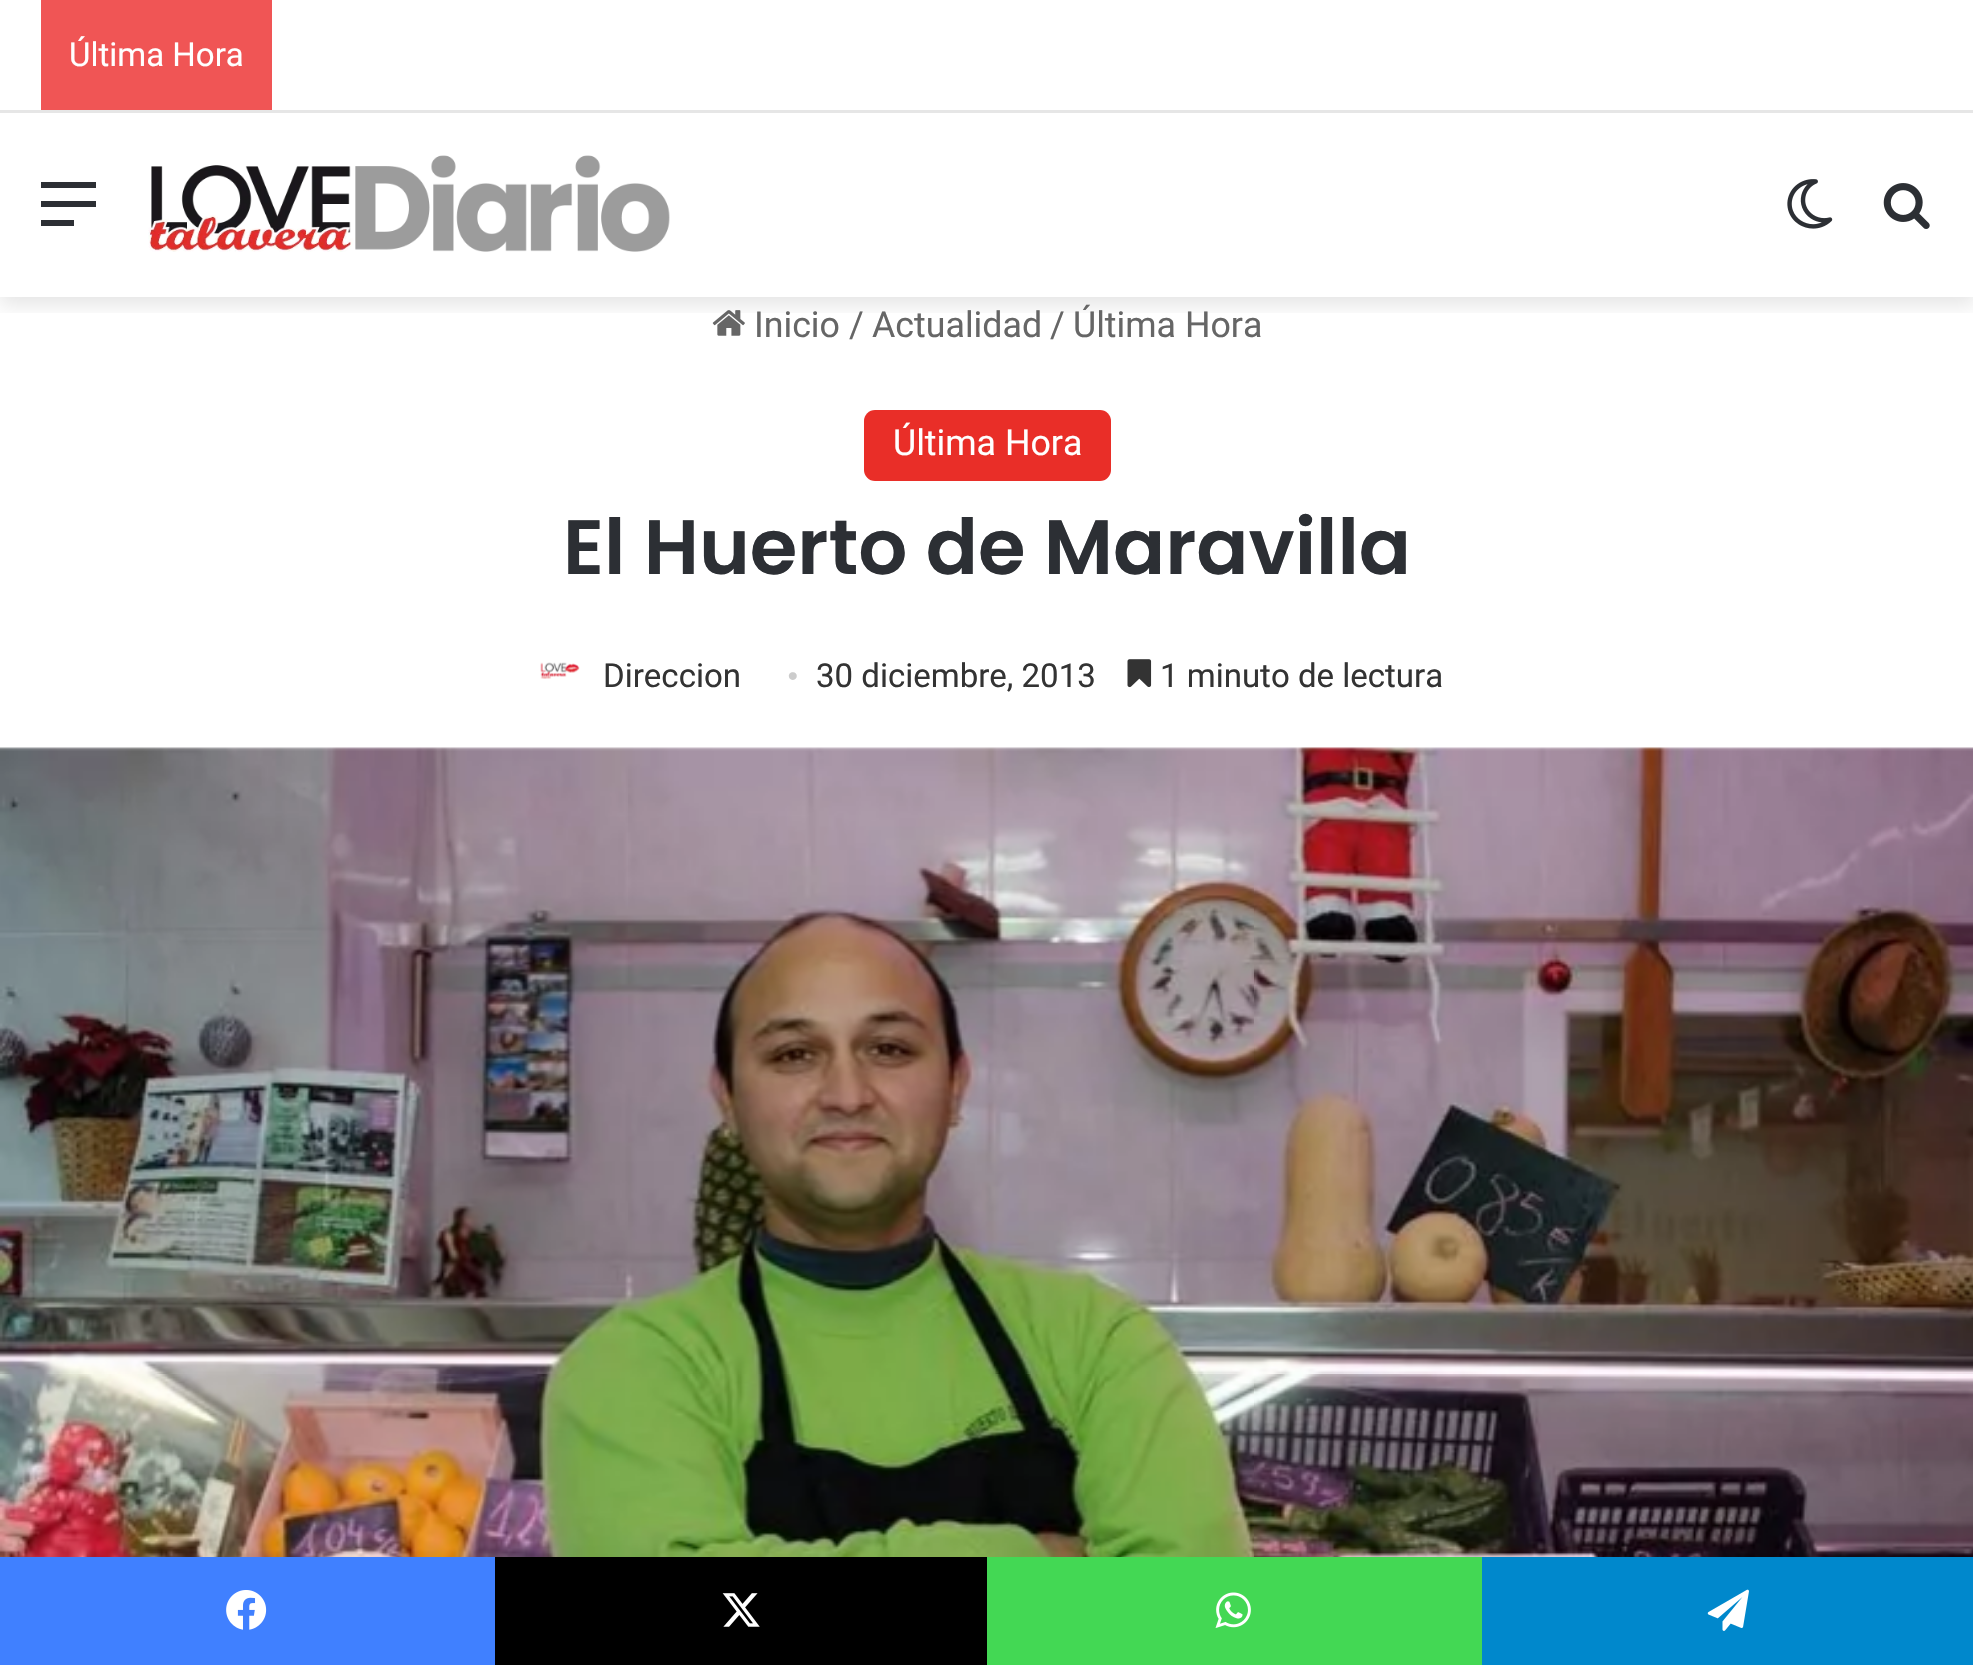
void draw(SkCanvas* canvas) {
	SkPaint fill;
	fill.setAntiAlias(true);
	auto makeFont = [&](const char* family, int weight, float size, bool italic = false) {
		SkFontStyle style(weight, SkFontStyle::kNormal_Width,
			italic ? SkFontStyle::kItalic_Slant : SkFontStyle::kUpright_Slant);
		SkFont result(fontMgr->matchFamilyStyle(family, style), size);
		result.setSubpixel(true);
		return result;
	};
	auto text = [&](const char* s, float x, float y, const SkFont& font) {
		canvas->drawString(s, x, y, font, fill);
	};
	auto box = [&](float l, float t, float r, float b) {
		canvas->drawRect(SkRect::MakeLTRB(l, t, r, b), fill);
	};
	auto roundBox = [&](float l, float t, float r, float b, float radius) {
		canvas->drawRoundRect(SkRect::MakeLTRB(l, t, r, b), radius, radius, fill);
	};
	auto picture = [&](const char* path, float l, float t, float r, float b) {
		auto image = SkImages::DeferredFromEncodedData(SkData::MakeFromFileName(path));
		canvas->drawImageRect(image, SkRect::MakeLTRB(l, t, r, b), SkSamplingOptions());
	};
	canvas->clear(0xFFFFFFFF);
	picture("image3.png", 712, 310, 745, 336);
	canvas->save();
	canvas->clipRect(SkRect::MakeLTRB(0, 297, 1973, 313));
	fill.setColor(0x1A000000);
	fill.setMaskFilter(SkMaskFilter::MakeBlur(kNormal_SkBlurStyle, 9.5f));
	canvas->drawRect(SkRect::MakeLTRB(0, 121, 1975, 305), fill);
	fill.setMaskFilter(nullptr);
	canvas->restore();
	fill.setColor(0xFFFFFFFF);
	box(12, 109, 1963, 110);
	fill.setColor(0xFFE6E6E6);
	box(0, 110, 1973, 113);
	fill.setColor(0xFFF05555);
	box(41, 0, 272, 110);
	fill.setColor(0xFF2C2F34);
	box(41, 201, 96, 207);
	box(41, 182, 96, 188);
	box(41, 220, 74, 226);
	picture("image0.png", 148, 155, 670, 252);
	picture("image1.png", 1787, 179, 1833, 229);
	picture("image2.png", 1883, 183, 1930, 229);
	fill.setColor(0xFFE92E28);
	roundBox(864, 410, 1111, 481, 11);
	picture("image4.png", 540, 662, 580, 679);
	picture("image5.png", 1127, 659, 1152, 688);
	picture("image6.png", 0, 747, 1973, 1557);
	fill.setColor(0xFF4080FF);
	box(0, 1557, 495, 1665);
	picture("image7.png", 226, 1590, 267, 1630);
	fill.setColor(0xFF000000);
	box(495, 1557, 987, 1665);
	picture("image8.png", 722, 1593, 760, 1627);
	fill.setColor(0xFF43D854);
	box(987, 1557, 1482, 1665);
	picture("image9.png", 1215, 1592, 1251, 1628);
	fill.setColor(0xFF0088CC);
	box(1482, 1557, 1973, 1665);
	picture("image10.png", 1707, 1589, 1749, 1631);
	auto font1 = makeFont("Roboto", 400, 33);
	fill.setColor(0xFFFFFFFF);
	text("Última Hora", 69, 66, font1);
	auto font2 = makeFont("Roboto", 400, 35.75f);
	fill.setColor(0xFF666666);
	text("Inicio", 754, 337, font2);
	text("/", 849, 337, font2);
	text("Actualidad", 872, 337, font2);
	text("/", 1050, 337, font2);
	text("Última Hora", 1073, 337, font2);
	fill.setColor(0xFFFFFFFF);
	text("Última Hora", 893, 455, font2);
	auto font3 = makeFont("Poppins", 600, 77);
	fill.setColor(0xFF2C2F34);
	text("El Huerto de Maravilla", 563, 574, font3);
	fill.setColor(0xFF333333);
	text("Direccion", 603, 687, font1);
	auto font4 = makeFont("Liberation Serif", 400, 33);
	fill.setColor(0xFFCCCCCC);
	text("•", 787, 687, font4);
	fill.setColor(0xFF333333);
	text("30 diciembre, 2013", 816, 687, font1);
	text("1 minuto de lectura", 1160, 687, font1);
}
